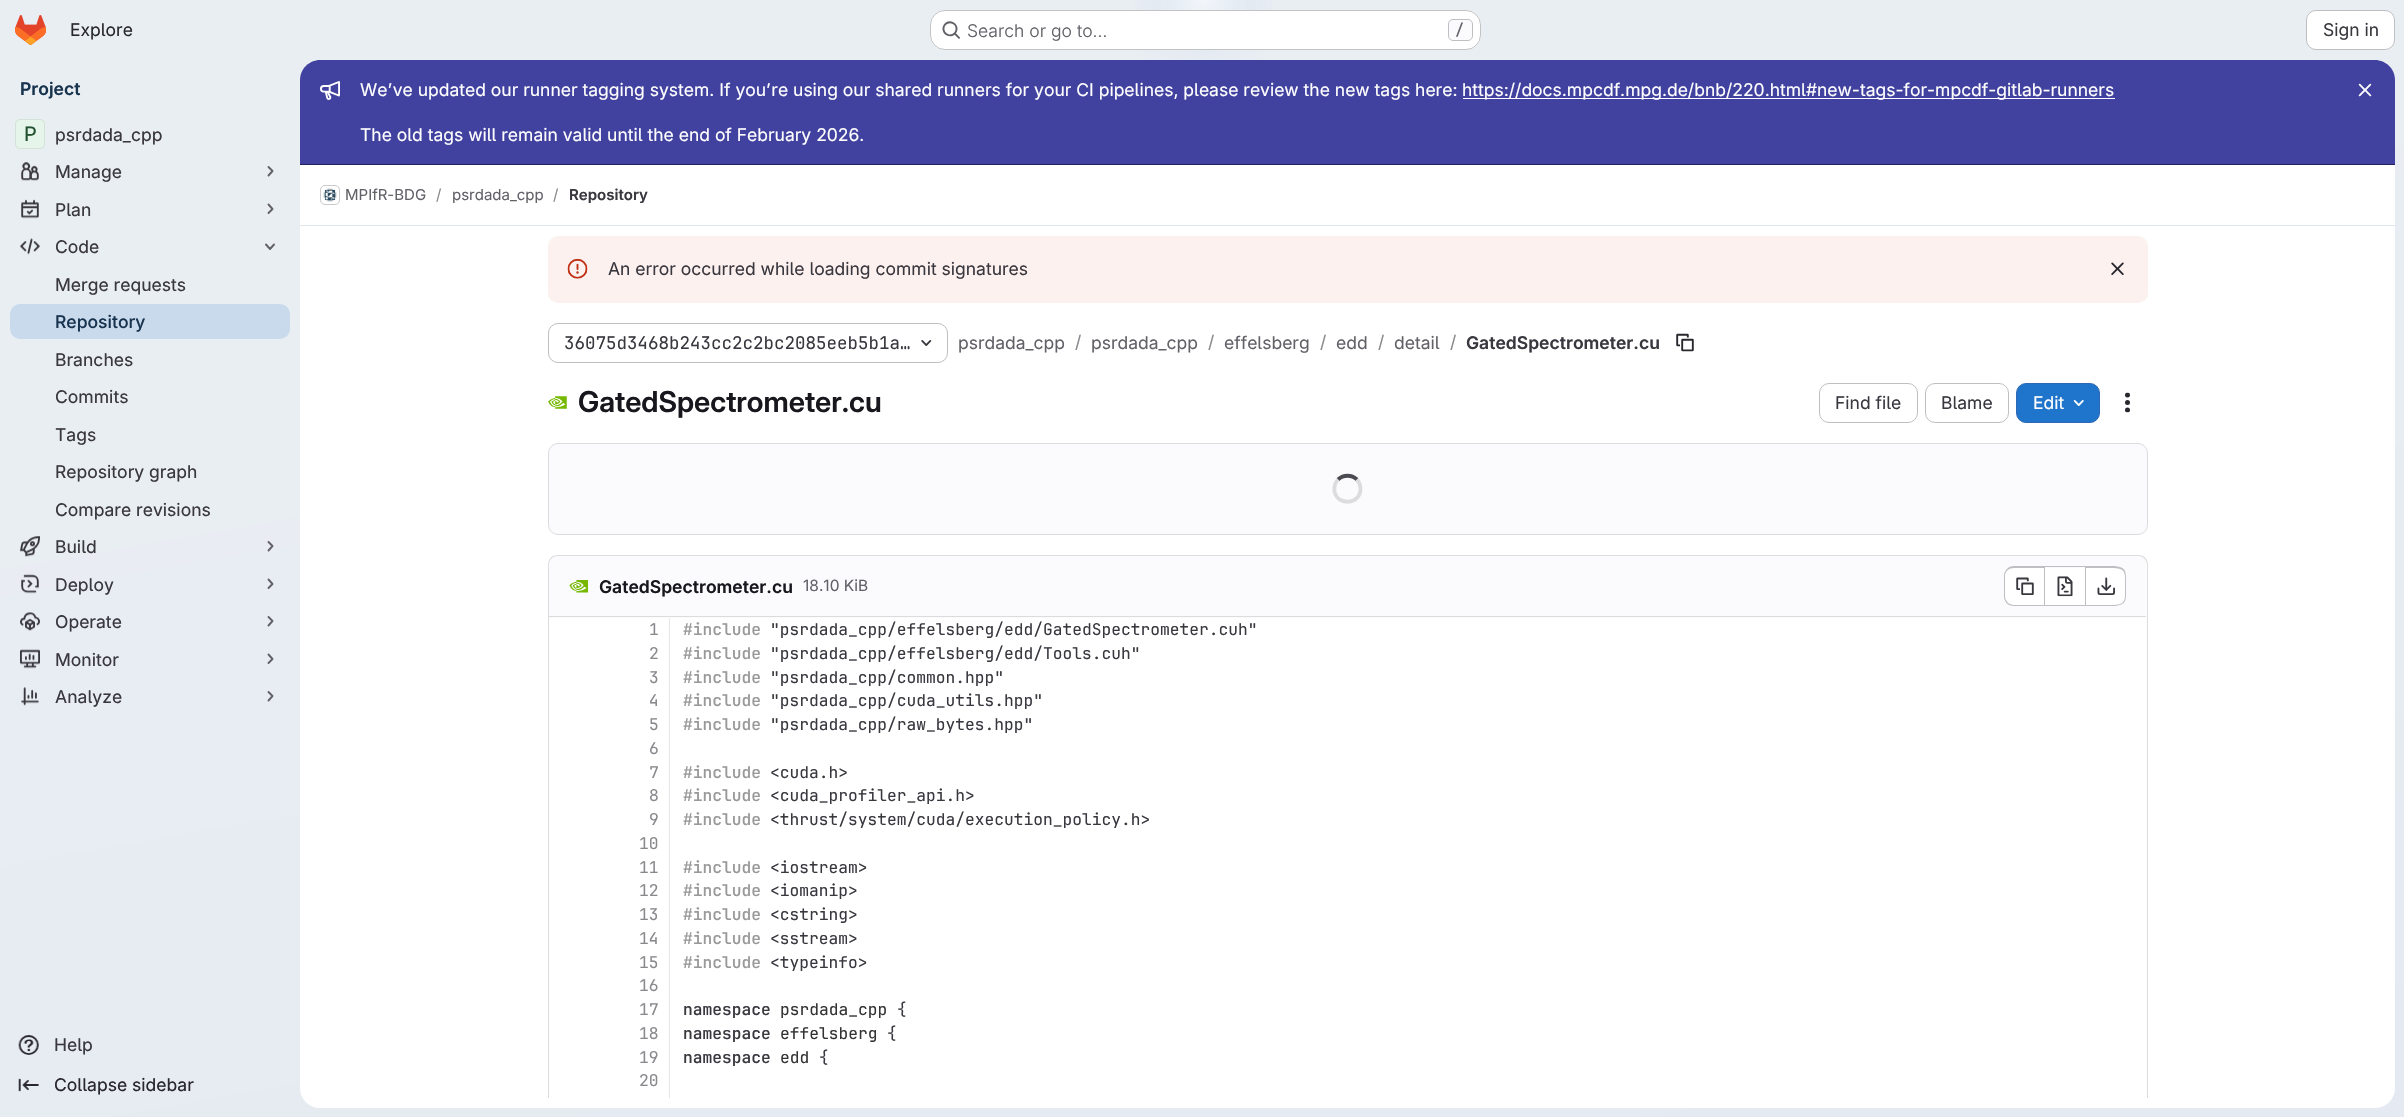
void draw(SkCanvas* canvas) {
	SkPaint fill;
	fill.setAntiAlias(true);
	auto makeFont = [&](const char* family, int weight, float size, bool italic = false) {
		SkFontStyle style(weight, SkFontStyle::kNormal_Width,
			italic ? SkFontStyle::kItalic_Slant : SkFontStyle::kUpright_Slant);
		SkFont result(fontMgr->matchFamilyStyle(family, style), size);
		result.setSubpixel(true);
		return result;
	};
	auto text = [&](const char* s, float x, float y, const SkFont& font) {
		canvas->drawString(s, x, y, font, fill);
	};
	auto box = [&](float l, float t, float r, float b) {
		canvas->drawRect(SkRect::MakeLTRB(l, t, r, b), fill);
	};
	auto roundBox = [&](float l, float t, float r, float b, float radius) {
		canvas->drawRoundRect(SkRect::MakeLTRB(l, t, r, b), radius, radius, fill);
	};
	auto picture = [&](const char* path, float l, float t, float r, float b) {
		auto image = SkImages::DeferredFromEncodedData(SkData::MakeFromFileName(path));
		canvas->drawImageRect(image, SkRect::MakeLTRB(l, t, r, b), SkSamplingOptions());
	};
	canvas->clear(0xFFFFFFFF);
	{
		const SkColor colors[] = {0xFFE5E9F2, 0xFFE9EEF3};
		const float stops[] = {0, 0.7f};
		const SkPoint ends[] = {{1334, 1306}, {1071, -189}};
		fill.setShader(SkGradientShader::MakeLinear(ends, colors, stops, 2, SkTileMode::kClamp));
		fill.setAlpha(255);
	}
	box(0, 0, 2404, 1117);
	{
		const SkColor colors[] = {0xFFDEE5F1, 0x00DEE5F1};
		const float stops[] = {0, 0.07f};
		SkMatrix m = SkMatrix::Translate(1203, 0).preScale(1203, 1118);
		fill.setShader(SkGradientShader::MakeRadial({0, 0}, 1, colors, stops, 2, SkTileMode::kClamp, 0, &m));
		fill.setAlpha(255);
	}
	box(1134, 0, 1272, 60);
	{
		const SkColor colors[] = {0xFFDEE7F1, 0x00DEE7F1};
		const float stops[] = {0, 0.05f};
		SkMatrix m = SkMatrix::Translate(1203, 0).preScale(1203, 1118);
		fill.setShader(SkGradientShader::MakeRadial({0, 0}, 1, colors, stops, 2, SkTileMode::kClamp, 0, &m));
		fill.setAlpha(255);
	}
	box(1166, 0, 1240, 37);
	{
		const SkColor colors[] = {0x99FFFFFF, 0x00FFFFFF};
		const float stops[] = {0, 0.03f};
		fill.setShader(SkGradientShader::MakeRadial({1203, 0}, 1642, colors, stops, 2, SkTileMode::kClamp));
		fill.setAlpha(255);
	}
	box(1161, 0, 1245, 10);
	picture("image0.png", 15, 15, 46, 45);
	fill.setShader(nullptr);
	fill.setColor(0xFFFFFFFF);
	roundBox(930, 10, 1481, 50, 15);
	fill.setStyle(SkPaint::kStroke_Style);
	fill.setStrokeWidth(1);
	fill.setColor(0x3D050506);
	canvas->drawRoundRect(SkRect::MakeLTRB(930.5f, 10.5f, 1480.5f, 49.5f), 14.5f, 14.5f, fill);
	picture("image1.png", 942, 21, 960, 39);
	fill.setStyle(SkPaint::kFill_Style);
	fill.setColor(0xFFFBFAFD);
	canvas->drawRoundRect(SkRect::MakeLTRB(1448.5f, 19.5f, 1472.5f, 40.5f), 4.5f, 4.5f, fill);
	fill.setStyle(SkPaint::kStroke_Style);
	fill.setColor(0xFFBFBFC3);
	canvas->drawRoundRect(SkRect::MakeLTRB(1448.5f, 19.5f, 1472.5f, 40.5f), 4.5f, 4.5f, fill);
	fill.setStyle(SkPaint::kFill_Style);
	fill.setColor(0xFFFFFFFF);
	canvas->drawRoundRect(SkRect::MakeLTRB(2306.5f, 10.5f, 2394.5f, 49.5f), 9.5f, 9.5f, fill);
	fill.setStyle(SkPaint::kStroke_Style);
	fill.setColor(0xFFBFBFC3);
	canvas->drawRoundRect(SkRect::MakeLTRB(2306.5f, 10.5f, 2394.5f, 49.5f), 9.5f, 9.5f, fill);
	fill.setStyle(SkPaint::kFill_Style);
	fill.setColor(0xFFFFFFFF);
	roundBox(15, 119, 45, 149, 5);
	fill.setColor(0x3D91D4A8);
	roundBox(15, 119, 45, 149, 5);
	fill.setStyle(SkPaint::kStroke_Style);
	fill.setColor(0x14050506);
	canvas->drawRoundRect(SkRect::MakeLTRB(15.5f, 119.5f, 44.5f, 148.5f), 4.5f, 4.5f, fill);
	picture("image2.png", 21, 162, 39, 181);
	fill.setStrokeWidth(1.9f);
	fill.setStrokeCap(SkPaint::kRound_Cap);
	fill.setStrokeJoin(SkPaint::kRound_Join);
	fill.setColor(0xFF626168);
	canvas->drawPath(SkPathBuilder().moveTo(268.5f, 167).lineTo(272.5f, 171).lineTo(268.5f, 175.5f).detach(), fill);
	picture("image3.png", 21, 199, 39, 219);
	canvas->drawPath(SkPathBuilder().moveTo(268.5f, 204.5f).lineTo(272.5f, 209).lineTo(268.5f, 213).detach(), fill);
	picture("image4.png", 20, 238, 40, 255);
	canvas->drawPath(SkPathBuilder().moveTo(274, 244.5f).lineTo(270, 249).lineTo(266, 244.5f).detach(), fill);
	fill.setStyle(SkPaint::kFill_Style);
	fill.setColor(0xFFC9DAEC);
	roundBox(10, 304, 290, 339, 10);
	picture("image5.png", 20, 536, 40, 557);
	fill.setStyle(SkPaint::kStroke_Style);
	fill.setColor(0xFF626168);
	canvas->drawPath(SkPathBuilder().moveTo(268.5f, 542).lineTo(272.5f, 546).lineTo(268.5f, 550.5f).detach(), fill);
	picture("image6.png", 21, 574, 39, 594);
	canvas->drawPath(SkPathBuilder().moveTo(268.5f, 579.5f).lineTo(272.5f, 584).lineTo(268.5f, 588).detach(), fill);
	picture("image7.png", 20, 612, 40, 631);
	canvas->drawPath(SkPathBuilder().moveTo(268.5f, 617).lineTo(272.5f, 621).lineTo(268.5f, 625.5f).detach(), fill);
	picture("image8.png", 20, 649, 40, 669);
	canvas->drawPath(SkPathBuilder().moveTo(268.5f, 654.5f).lineTo(272.5f, 659).lineTo(268.5f, 663).detach(), fill);
	picture("image9.png", 21, 687, 39, 706);
	canvas->drawPath(SkPathBuilder().moveTo(268.5f, 692).lineTo(272.5f, 696).lineTo(268.5f, 700.5f).detach(), fill);
	picture("image10.png", 18, 1035, 39, 1055);
	picture("image11.png", 18, 1078, 39, 1092);
	fill.setStyle(SkPaint::kFill_Style);
	fill.setColor(0xFFFFFFFF);
	roundBox(300, 60, 2395, 1108, 20);
	fill.setColor(0xFF41419F);
	canvas->drawPath(SkPathBuilder().moveTo(320, 60).lineTo(2375, 60).cubicTo(2386, 60, 2395, 69, 2395, 80).lineTo(2395, 165).lineTo(300, 165).lineTo(300, 80).cubicTo(300, 69, 309, 60, 320, 60).close().detach(), fill);
	fill.setColor(0xFF222261);
	box(300, 164, 2395, 165);
	picture("image12.png", 320, 81, 340, 100);
	fill.setColor(0xFFFFFFFF);
	box(1463, 98, 2115, 99);
	picture("image13.png", 2358, 83, 2372, 97);
	fill.setColor(0xFFDFE6EC);
	box(300, 225, 2395, 226);
	fill.setStyle(SkPaint::kStroke_Style);
	fill.setStrokeWidth(1);
	fill.setStrokeCap(SkPaint::kButt_Cap);
	fill.setStrokeJoin(SkPaint::kMiter_Join);
	fill.setColor(0xFFDCDCDE);
	canvas->drawRoundRect(SkRect::MakeLTRB(320.5f, 185.5f, 339.5f, 204.5f), 4.5f, 4.5f, fill);
	picture("image14.png", 323, 188, 337, 202);
	fill.setColor(0x14050506);
	canvas->drawRoundRect(SkRect::MakeLTRB(320.5f, 185.5f, 339.5f, 204.5f), 4.5f, 4.5f, fill);
	fill.setStyle(SkPaint::kFill_Style);
	fill.setColor(0xFFFCF1EF);
	roundBox(548, 236, 2148, 303, 10);
	picture("image15.png", 567, 258, 588, 279);
	picture("image16.png", 2111, 262, 2124, 275);
	fill.setStyle(SkPaint::kStroke_Style);
	fill.setColor(0xFFBFBFC3);
	canvas->drawRoundRect(SkRect::MakeLTRB(548.5f, 323.5f, 947.5f, 362.5f), 9.5f, 9.5f, fill);
	picture("image17.png", 921, 340, 932, 346);
	picture("image18.png", 1676, 333, 1694, 352);
	picture("image19.png", 548, 396, 567, 409);
	canvas->drawRoundRect(SkRect::MakeLTRB(1819.5f, 383.5f, 1917.5f, 422.5f), 9.5f, 9.5f, fill);
	canvas->drawRoundRect(SkRect::MakeLTRB(1925.5f, 383.5f, 2008.5f, 422.5f), 9.5f, 9.5f, fill);
	fill.setStyle(SkPaint::kFill_Style);
	fill.setColor(0xFF1F75CB);
	canvas->drawRoundRect(SkRect::MakeLTRB(2016.5f, 383.5f, 2099.5f, 422.5f), 9.5f, 9.5f, fill);
	fill.setStyle(SkPaint::kStroke_Style);
	fill.setColor(0xFF2F68B4);
	canvas->drawRoundRect(SkRect::MakeLTRB(2016.5f, 383.5f, 2099.5f, 422.5f), 9.5f, 9.5f, fill);
	picture("image20.png", 2073, 400, 2084, 406);
	picture("image21.png", 2125, 392, 2130, 413);
	fill.setStyle(SkPaint::kFill_Style);
	fill.setColor(0xFFFBFAFD);
	canvas->drawRoundRect(SkRect::MakeLTRB(548.5f, 443.5f, 2147.5f, 534.5f), 9.5f, 9.5f, fill);
	fill.setStyle(SkPaint::kStroke_Style);
	fill.setColor(0xFFDCDCDE);
	canvas->drawRoundRect(SkRect::MakeLTRB(548.5f, 443.5f, 2147.5f, 534.5f), 9.5f, 9.5f, fill);
	fill.setStrokeWidth(3.8f);
	fill.setColor(0xFF4C4B51);
	canvas->drawPath(SkPathBuilder().moveTo(1338, 479.5f).cubicTo(1343.5f, 474.5f, 1351.5f, 474.5f, 1357, 479.5f).detach(), fill);
	fill.setColor(0xFFDCDCDE);
	canvas->drawPath(SkPathBuilder().moveTo(1357, 479.5f).cubicTo(1359, 482, 1360.5f, 485.5f, 1360.5f, 489).cubicTo(1360.5f, 504.5f, 1337.5f, 506.5f, 1334.5f, 491.5f).cubicTo(1334, 487, 1335, 482.5f, 1338, 479.5f).detach(), fill);
	canvas->save();
	canvas->clipRect(SkRect::MakeLTRB(300, 226, 2395, 1098));
	fill.setStyle(SkPaint::kFill_Style);
	canvas->drawPath(SkPathBuilder().moveTo(558, 555).cubicTo(552, 555, 548, 559, 548, 565).lineTo(548, 1108).lineTo(549, 1108).lineTo(549, 565).cubicTo(549, 560, 553, 556, 558, 556).lineTo(2138, 556).cubicTo(2143, 556, 2147, 560, 2147, 565).lineTo(2147, 1108).lineTo(2148, 1108).lineTo(2148, 565).cubicTo(2148, 559, 2144, 555, 2138, 555).close().detach(), fill);
	canvas->restore();
	fill.setColor(0xFFFBFAFD);
	canvas->drawPath(SkPathBuilder().moveTo(558, 556).lineTo(2137, 556).cubicTo(2142, 556, 2146, 560, 2146, 565).lineTo(2146, 618).lineTo(549, 618).lineTo(549, 565).cubicTo(549, 560, 553, 556, 558, 556).close().detach(), fill);
	fill.setColor(0xFFDCDCDE);
	box(549, 616, 2146, 617);
	picture("image22.png", 569, 580, 589, 593);
	fill.setColor(0xFFFFFFFF);
	canvas->drawPath(SkPathBuilder().moveTo(2014, 568).lineTo(2044, 568).lineTo(2044, 605).lineTo(2014, 605).cubicTo(2009, 605, 2005, 601, 2005, 596).lineTo(2005, 577).cubicTo(2005, 572, 2009, 568, 2014, 568).close().detach(), fill);
	fill.setColor(0xFFBFBFC3);
	canvas->drawPath(SkPathBuilder(SkPathFillType::kEvenOdd).moveTo(2014, 566).lineTo(2044, 566).lineTo(2044, 606).lineTo(2014, 606).cubicTo(2008, 606, 2004, 602, 2004, 596).lineTo(2004, 576).cubicTo(2004, 571, 2008, 566, 2014, 566).close().moveTo(2014, 568).lineTo(2044, 568).lineTo(2044, 605).lineTo(2014, 605).cubicTo(2009, 605, 2005, 601, 2005, 596).lineTo(2005, 576).cubicTo(2005, 571, 2009, 568, 2014, 568).close().detach(), fill);
	picture("image23.png", 2016, 577, 2034, 595);
	fill.setColor(0xFFFFFFFF);
	box(2045, 568, 2085, 605);
	fill.setColor(0xFFBFBFC3);
	box(2045, 566, 2085, 567);
	box(2045, 605, 2085, 606);
	box(2044, 566, 2045, 606);
	picture("image24.png", 2057, 576, 2073, 597);
	fill.setColor(0xFFFFFFFF);
	canvas->drawPath(SkPathBuilder().moveTo(2086, 568).lineTo(2116, 568).cubicTo(2121, 568, 2125, 572, 2125, 577).lineTo(2125, 596).cubicTo(2125, 601, 2121, 605, 2116, 605).lineTo(2086, 605).close().detach(), fill);
	fill.setColor(0xFFBFBFC3);
	canvas->drawPath(SkPathBuilder(SkPathFillType::kEvenOdd).moveTo(2086, 566).lineTo(2111, 566).cubicTo(2128, 566, 2126, 572, 2126, 586).cubicTo(2126, 600, 2128, 606, 2111, 606).lineTo(2086, 606).close().moveTo(2086, 568).lineTo(2111, 568).cubicTo(2127, 568, 2125, 573, 2125, 586).cubicTo(2125, 600, 2127, 605, 2111, 605).lineTo(2086, 605).close().detach(), fill);
	box(2085, 566, 2086, 606);
	picture("image25.png", 2097, 577, 2115, 595);
	fill.setColor(0xFFE6E6E6);
	box(669, 618, 670, 1098);
	auto font1 = makeFont("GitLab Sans", 400, 17.5f);
	fill.setColor(0xFF28272D);
	text("Explore", 70, 36, font1);
	auto font2 = makeFont("GitLab Sans", 300, 17.5f);
	fill.setColor(0xFF626168);
	text("Search or go to…", 967, 37, font2);
	auto font3 = makeFont("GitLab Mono", 500, 15);
	text("/", 1455, 35, font3);
	fill.setColor(0xFF3A383F);
	text("Sign in", 2323, 36, font1);
	auto font4 = makeFont("GitLab Sans", 600, 17.5f);
	fill.setColor(0xFF18334E);
	text("Project", 20, 95, font4);
	auto font5 = makeFont("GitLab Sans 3", 400, 20);
	fill.setColor(0xFF225131);
	text("P", 24, 141, font5);
	auto font6 = makeFont("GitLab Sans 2", 400, 17.5f);
	fill.setColor(0xFF3A383F);
	text("psrdada_cpp", 55, 141, font6);
	text("Manage", 55, 178, font6);
	text("Plan", 55, 216, font6);
	text("Code", 55, 253, font6);
	text("Merge requests", 55, 291, font6);
	auto font7 = makeFont("GitLab Sans", 500, 17.5f);
	fill.setColor(0xFF18334E);
	text("Repository", 55, 328, font7);
	fill.setColor(0xFF3A383F);
	text("Branches", 55, 366, font6);
	text("Commits", 55, 403, font6);
	text("Tags", 55, 441, font6);
	text("Repository graph", 55, 478, font6);
	text("Compare revisions", 55, 516, font6);
	text("Build", 55, 553, font6);
	text("Deploy", 55, 591, font6);
	text("Operate", 55, 628, font6);
	text("Monitor", 55, 666, font6);
	text("Analyze", 55, 703, font6);
	text("Help", 54, 1051, font6);
	fill.setColor(0xFF28272D);
	text("Collapse sidebar", 54, 1091, font6);
	fill.setColor(0xFFFFFFFF);
	text("We’ve updated our runner tagging system. If you’re using our shared runners for your CI pipelines, please review the new tags here:", 360, 96, font1);
	text("https://docs.mpcdf.mpg.de/bnb/220.html#new-tags-for-mpcdf-gitlab-runners", 1462, 96, font1);
	text("The old tags will remain valid until the end of February 2026.", 360, 141, font1);
	auto font8 = makeFont("GitLab Sans", 400, 15);
	fill.setColor(0xFF626168);
	text("MPIfR-BDG", 345, 200, font8);
	fill.setColor(0xFF89888D);
	text("/", 436, 200, font8);
	fill.setColor(0xFF626168);
	text("psrdada_cpp", 452, 200, font8);
	fill.setColor(0xFF89888D);
	text("/", 553, 200, font8);
	auto font9 = makeFont("GitLab Sans", 600, 15);
	fill.setColor(0xFF3A383F);
	text("Repository", 569, 200, font9);
	text("An error occurred while loading commit signatures", 608, 275, font1);
	auto font10 = makeFont("GitLab Mono", 400, 17.5f);
	text("36075d3468b243cc2c2bc2085eeb5b1a…", 564, 349, font10);
	fill.setColor(0xFF626168);
	text("psrdada_cpp", 958, 349, font1);
	fill.setColor(0xFF89888D);
	text("/", 1075, 348, font1);
	fill.setColor(0xFF626168);
	text("psrdada_cpp", 1091, 349, font1);
	fill.setColor(0xFF89888D);
	text("/", 1208, 348, font1);
	fill.setColor(0xFF626168);
	text("effelsberg", 1224, 349, font1);
	fill.setColor(0xFF89888D);
	text("/", 1320, 348, font1);
	fill.setColor(0xFF626168);
	text("edd", 1336, 349, font1);
	fill.setColor(0xFF89888D);
	text("/", 1378, 348, font1);
	fill.setColor(0xFF626168);
	text("detail", 1394, 349, font1);
	fill.setColor(0xFF89888D);
	text("/", 1450, 348, font1);
	fill.setColor(0xFF3A383F);
	text("GatedSpectrometer.cu", 1466, 349, font4);
	auto font11 = makeFont("GitLab Sans 2", 600, 28.75f);
	fill.setColor(0xFF18171D);
	text("GatedSpectrometer.cu", 578, 412, font11);
	fill.setColor(0xFF3A383F);
	text("Find file", 1835, 409, font1);
	text("Blame", 1941, 409, font1);
	fill.setColor(0xFFFFFFFF);
	text("Edit", 2033, 409, font1);
	fill.setColor(0xFF18171D);
	text("GatedSpectrometer.cu", 599, 593, font4);
	auto font12 = makeFont("GitLab Sans", 400, 15.5f);
	fill.setColor(0xFF626168);
	text("18.10 KiB", 803, 591, font12);
	auto font13 = makeFont("GitLab Mono", 400, 16.25f);
	fill.setColor(0xFF89888D);
	text("1", 649, 635, font13);
	text("2", 649, 659, font13);
	text("3", 649, 683, font13);
	text("4", 649, 706, font13);
	text("5", 649, 730, font13);
	text("6", 649, 754, font13);
	text("7", 649, 778, font13);
	text("8", 649, 801, font13);
	text("9", 649, 825, font13);
	text("10", 639, 849, font13);
	text("11", 639, 873, font13);
	text("12", 639, 896, font13);
	text("13", 639, 920, font13);
	text("14", 639, 944, font13);
	text("15", 639, 968, font13);
	text("16", 639, 991, font13);
	text("17", 639, 1015, font13);
	text("18", 639, 1039, font13);
	text("19", 639, 1063, font13);
	text("20", 639, 1086, font13);
	auto font14 = makeFont("GitLab Mono", 600, 16.25f);
	fill.setColor(0xFF999999);
	text("#include", 683, 635, font14);
	fill.setColor(0xFF3A383F);
	text("\"psrdada_cpp/effelsberg/edd/GatedSpectrometer.cuh\"", 770, 635, font13);
	fill.setColor(0xFF999999);
	text("#include", 683, 659, font14);
	fill.setColor(0xFF3A383F);
	text("\"psrdada_cpp/effelsberg/edd/Tools.cuh\"", 770, 659, font13);
	fill.setColor(0xFF999999);
	text("#include", 683, 683, font14);
	fill.setColor(0xFF3A383F);
	text("\"psrdada_cpp/common.hpp\"", 770, 683, font13);
	fill.setColor(0xFF999999);
	text("#include", 683, 706, font14);
	fill.setColor(0xFF3A383F);
	text("\"psrdada_cpp/cuda_utils.hpp\"", 770, 706, font13);
	fill.setColor(0xFF999999);
	text("#include", 683, 730, font14);
	fill.setColor(0xFF3A383F);
	text("\"psrdada_cpp/raw_bytes.hpp\"", 770, 730, font13);
	fill.setColor(0xFF999999);
	text("#include", 683, 778, font14);
	fill.setColor(0xFF3A383F);
	text("<cuda.h>", 770, 778, font13);
	fill.setColor(0xFF999999);
	text("#include", 683, 801, font14);
	fill.setColor(0xFF3A383F);
	text("<cuda_profiler_api.h>", 770, 801, font13);
	fill.setColor(0xFF999999);
	text("#include", 683, 825, font14);
	fill.setColor(0xFF3A383F);
	text("<thrust/system/cuda/execution_policy.h>", 770, 825, font13);
	fill.setColor(0xFF999999);
	text("#include", 683, 873, font14);
	fill.setColor(0xFF3A383F);
	text("<iostream>", 770, 873, font13);
	fill.setColor(0xFF999999);
	text("#include", 683, 896, font14);
	fill.setColor(0xFF3A383F);
	text("<iomanip>", 770, 896, font13);
	fill.setColor(0xFF999999);
	text("#include", 683, 920, font14);
	fill.setColor(0xFF3A383F);
	text("<cstring>", 770, 920, font13);
	fill.setColor(0xFF999999);
	text("#include", 683, 944, font14);
	fill.setColor(0xFF3A383F);
	text("<sstream>", 770, 944, font13);
	fill.setColor(0xFF999999);
	text("#include", 683, 968, font14);
	fill.setColor(0xFF3A383F);
	text("<typeinfo>", 770, 968, font13);
	text("namespace", 683, 1015, font14);
	fill.setColor(0xFF333333);
	text("psrdada_cpp", 780, 1015, font13);
	fill.setColor(0xFF3A383F);
	text("{", 897, 1015, font13);
	text("namespace", 683, 1039, font14);
	fill.setColor(0xFF333333);
	text("effelsberg", 780, 1039, font13);
	fill.setColor(0xFF3A383F);
	text("{", 887, 1039, font13);
	text("namespace", 683, 1063, font14);
	fill.setColor(0xFF333333);
	text("edd", 780, 1063, font13);
	fill.setColor(0xFF3A383F);
	text("{", 819, 1063, font13);
}
